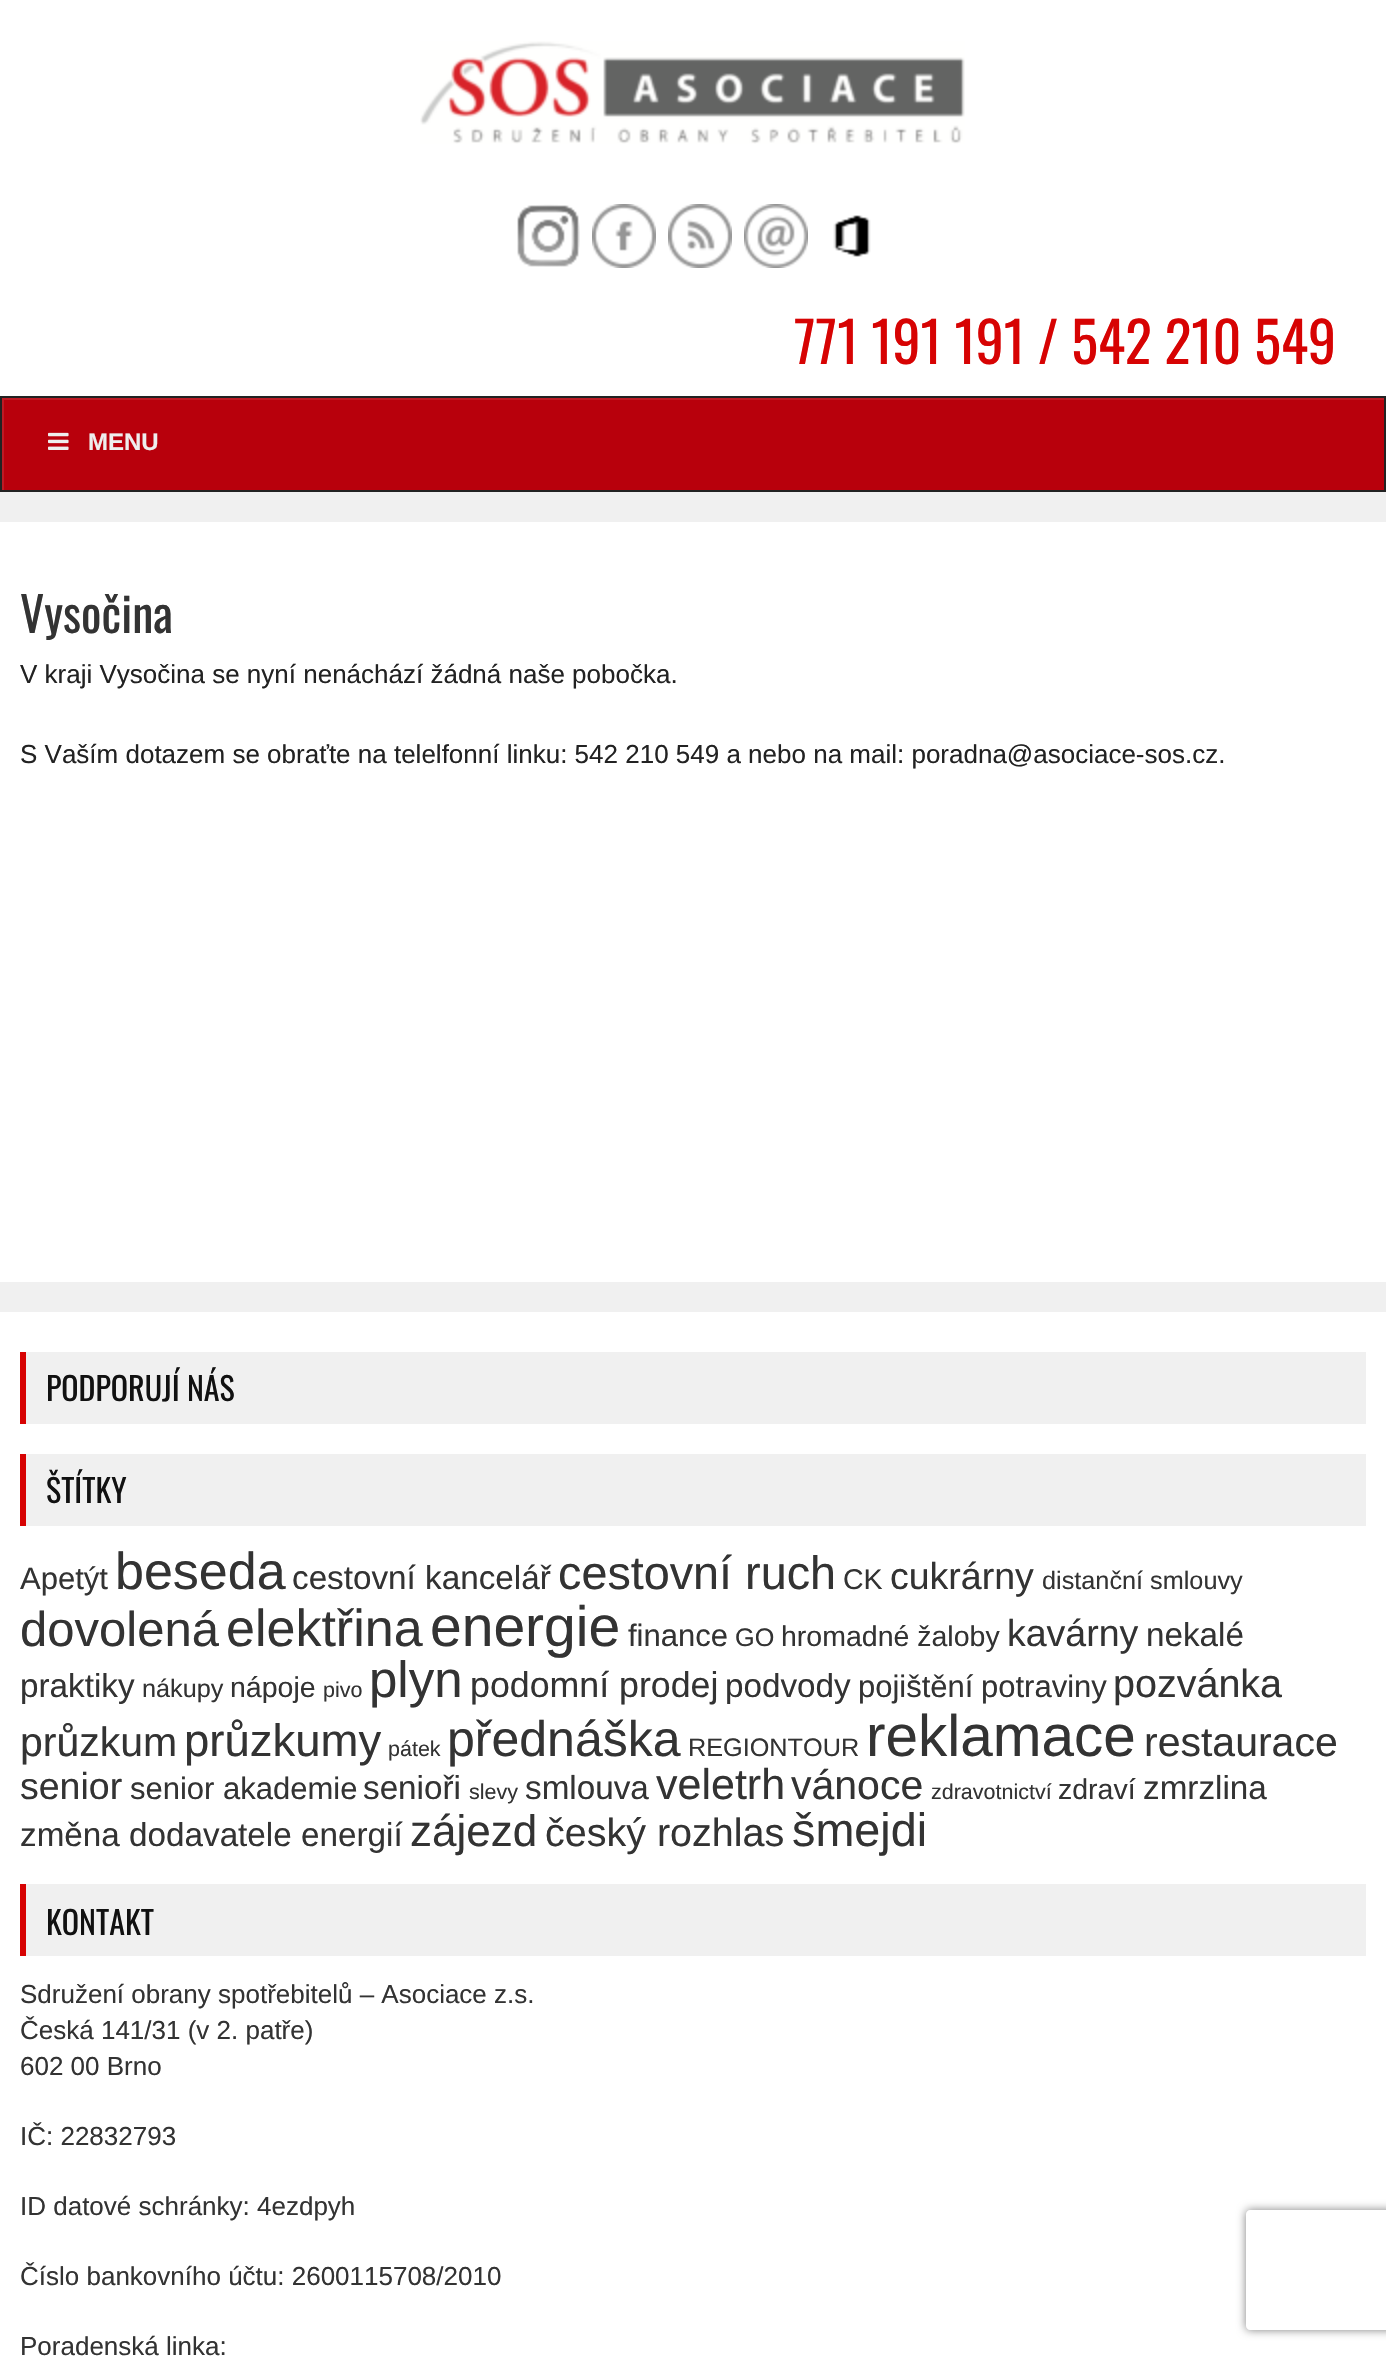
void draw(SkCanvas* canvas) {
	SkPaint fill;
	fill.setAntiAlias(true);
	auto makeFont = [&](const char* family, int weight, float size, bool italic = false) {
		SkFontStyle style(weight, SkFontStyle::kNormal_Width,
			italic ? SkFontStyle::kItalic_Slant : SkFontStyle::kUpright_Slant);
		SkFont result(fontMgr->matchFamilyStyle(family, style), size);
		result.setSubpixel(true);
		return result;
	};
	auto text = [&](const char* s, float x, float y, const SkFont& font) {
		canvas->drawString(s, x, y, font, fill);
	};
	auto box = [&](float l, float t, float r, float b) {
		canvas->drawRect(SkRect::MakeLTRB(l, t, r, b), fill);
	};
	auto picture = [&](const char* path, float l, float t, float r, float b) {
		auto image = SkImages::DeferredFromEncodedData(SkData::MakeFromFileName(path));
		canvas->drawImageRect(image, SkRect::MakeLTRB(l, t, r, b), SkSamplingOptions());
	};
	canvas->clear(0xFFF0F0F0);
	fill.setColor(0xFFFFFFFF);
	box(0, 0, 1386, 396);
	picture("image0.png", 420, 41, 965, 144);
	picture("image1.png", 517, 204, 580, 267);
	picture("image2.png", 592, 204, 656, 268);
	picture("image3.png", 668, 204, 732, 268);
	picture("image4.png", 744, 204, 808, 268);
	picture("image5.png", 833, 215, 871, 257);
	fill.setColor(0xFFB8000C);
	box(4, 400, 1384, 490);
	canvas->save();
	canvas->clipRect(SkRect::MakeLTRB(2, 398, 1384, 490));
	fill.setColor(0xFFBF1A24);
	canvas->drawPath(SkPathBuilder(SkPathFillType::kEvenOdd).moveTo(-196, 200).lineTo(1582, 200).lineTo(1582, 688).lineTo(-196, 688).close().moveTo(4, 400).lineTo(1386, 400).lineTo(1386, 492).lineTo(4, 492).close().detach(), fill);
	canvas->restore();
	fill.setStyle(SkPaint::kStroke_Style);
	fill.setStrokeWidth(2);
	fill.setColor(0xFF222222);
	canvas->drawRect(SkRect::MakeLTRB(1, 397, 1385, 491), fill);
	picture("image6.png", 48, 432, 69, 450);
	fill.setStyle(SkPaint::kFill_Style);
	fill.setColor(0xFFFFFFFF);
	box(0, 522, 1386, 1282);
	box(0, 1312, 1386, 2358);
	fill.setColor(0xFFF0F0F0);
	box(26, 1352, 1366, 1424);
	fill.setColor(0xFFD70303);
	box(20, 1352, 26, 1424);
	fill.setColor(0xFFF0F0F0);
	box(26, 1454, 1366, 1526);
	fill.setColor(0xFFD70303);
	box(20, 1454, 26, 1526);
	fill.setColor(0xFFF0F0F0);
	box(26, 1884, 1366, 1956);
	fill.setColor(0xFFD70303);
	box(20, 1884, 26, 1956);
	canvas->save();
	canvas->clipPath(SkPathBuilder(SkPathFillType::kEvenOdd).moveTo(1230, 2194).lineTo(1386, 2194).lineTo(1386, 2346).lineTo(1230, 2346).close().moveTo(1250, 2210).lineTo(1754, 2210).cubicTo(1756, 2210, 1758, 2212, 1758, 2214).lineTo(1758, 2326).cubicTo(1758, 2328, 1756, 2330, 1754, 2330).lineTo(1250, 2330).cubicTo(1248, 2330, 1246, 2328, 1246, 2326).lineTo(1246, 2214).cubicTo(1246, 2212, 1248, 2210, 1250, 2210).close().detach(), true);
	fill.setColor(0xFF808080);
	fill.setMaskFilter(SkMaskFilter::MakeBlur(kNormal_SkBlurStyle, 5));
	canvas->drawRoundRect(SkRect::MakeLTRB(1246, 2210, 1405, 2330), 4, 4, fill);
	fill.setMaskFilter(nullptr);
	canvas->restore();
	auto font1 = makeFont("Oswald", 400, 56);
	fill.setColor(0xFFD70303);
	text("771 191 191 / 542 210 549", 794, 364, font1);
	auto font2 = makeFont("Liberation Sans", 700, 24);
	fill.setColor(0xFFEEEEEE);
	text("MENU", 88, 450, font2);
	auto font3 = makeFont("Oswald", 400, 48);
	fill.setColor(0xFF333333);
	text("Vysočina", 20, 633, font3);
	auto font4 = makeFont("Liberation Sans", 400, 26);
	fill.setColor(0xFF222222);
	text("V kraji Vysočina se nyní nenáchází žádná naše pobočka.", 20, 683, font4);
	text("S Vaším dotazem se obraťte na telelfonní linku: 542 210 549 a nebo na mail: poradna@asociace-sos.cz.", 20, 763, font4);
	auto font5 = makeFont("Oswald", 400, 32);
	fill.setColor(0xFF111111);
	text("PODPORUJÍ NÁS", 46, 1401, font5);
	text("ŠTÍTKY", 46, 1503, font5);
	auto font6 = makeFont("Liberation Sans", 400, 31);
	fill.setColor(0xFF333333);
	text("Apetýt", 20, 1589, font6);
	auto font7 = makeFont("Liberation Sans", 400, 52);
	text("beseda", 115, 1589, font7);
	auto font8 = makeFont("Liberation Sans", 400, 33.25f);
	text("cestovní kancelář", 292, 1589, font8);
	auto font9 = makeFont("Liberation Sans", 400, 46.75f);
	text("cestovní ruch", 558, 1589, font9);
	auto font10 = makeFont("Liberation Sans", 400, 28.5f);
	text("CK", 843, 1589, font10);
	auto font11 = makeFont("Liberation Sans", 400, 37.5f);
	text("cukrárny", 890, 1589, font11);
	auto font12 = makeFont("Liberation Sans", 400, 25.25f);
	text("distanční smlouvy", 1042, 1589, font12);
	auto font13 = makeFont("Liberation Sans", 400, 49);
	text("dovolená", 20, 1646, font13);
	text("elektřina", 226, 1646, font7);
	auto font14 = makeFont("Liberation Sans", 400, 57);
	text("energie", 430, 1646, font14);
	text("finance", 628, 1646, font6);
	text("GO", 735, 1646, font12);
	text("hromadné žaloby", 781, 1646, font10);
	text("kavárny", 1007, 1646, font11);
	text("nekalé", 1146, 1646, font8);
	text("praktiky", 20, 1697, font8);
	text("nákupy", 142, 1697, font12);
	text("nápoje", 230, 1697, font10);
	auto font15 = makeFont("Liberation Sans", 400, 21.5f);
	text("pivo", 323, 1697, font15);
	auto font16 = makeFont("Liberation Sans", 400, 51);
	text("plyn", 369, 1697, font16);
	auto font17 = makeFont("Liberation Sans", 400, 35.75f);
	text("podomní prodej", 470, 1697, font17);
	text("podvody", 725, 1697, font8);
	text("pojištění", 858, 1697, font6);
	text("potraviny", 981, 1697, font6);
	auto font18 = makeFont("Liberation Sans", 400, 39.5f);
	text("pozvánka", 1113, 1697, font18);
	auto font19 = makeFont("Liberation Sans", 400, 41);
	text("průzkum", 20, 1756, font19);
	auto font20 = makeFont("Liberation Sans", 400, 45.5f);
	text("průzkumy", 184, 1756, font20);
	text("pátek", 388, 1756, font15);
	auto font21 = makeFont("Liberation Sans", 400, 50);
	text("přednáška", 447, 1756, font21);
	text("REGIONTOUR", 688, 1756, font12);
	auto font22 = makeFont("Liberation Sans", 400, 58.5f);
	text("reklamace", 866, 1756, font22);
	text("restaurace", 1144, 1756, font19);
	text("senior", 20, 1799, font11);
	text("senior akademie", 130, 1799, font6);
	text("senioři", 363, 1799, font8);
	text("slevy", 469, 1799, font15);
	text("smlouva", 525, 1799, font8);
	auto font23 = makeFont("Liberation Sans", 400, 43);
	text("veletrh", 656, 1799, font23);
	text("vánoce", 791, 1799, font19);
	text("zdravotnictví", 931, 1799, font15);
	text("zdraví", 1058, 1799, font10);
	text("zmrzlina", 1143, 1799, font8);
	text("změna dodavatele energií", 20, 1846, font8);
	auto font24 = makeFont("Liberation Sans", 400, 44);
	text("zájezd", 410, 1846, font24);
	text("český rozhlas", 545, 1846, font18);
	text("šmejdi", 792, 1846, font9);
	fill.setColor(0xFF111111);
	text("KONTAKT", 46, 1935, font5);
	fill.setColor(0xFF333333);
	text("Sdružení obrany spotřebitelů – Asociace z.s.", 20, 2003, font4);
	text("Česká 141/31 (v 2. patře)", 20, 2039, font4);
	text("602 00 Brno", 20, 2075, font4);
	text("IČ: 22832793", 20, 2145, font4);
	text("ID datové schránky: 4ezdpyh", 20, 2215, font4);
	text("Číslo bankovního účtu: 2600115708/2010", 20, 2285, font4);
	text("Poradenská linka:", 20, 2355, font4);
}
